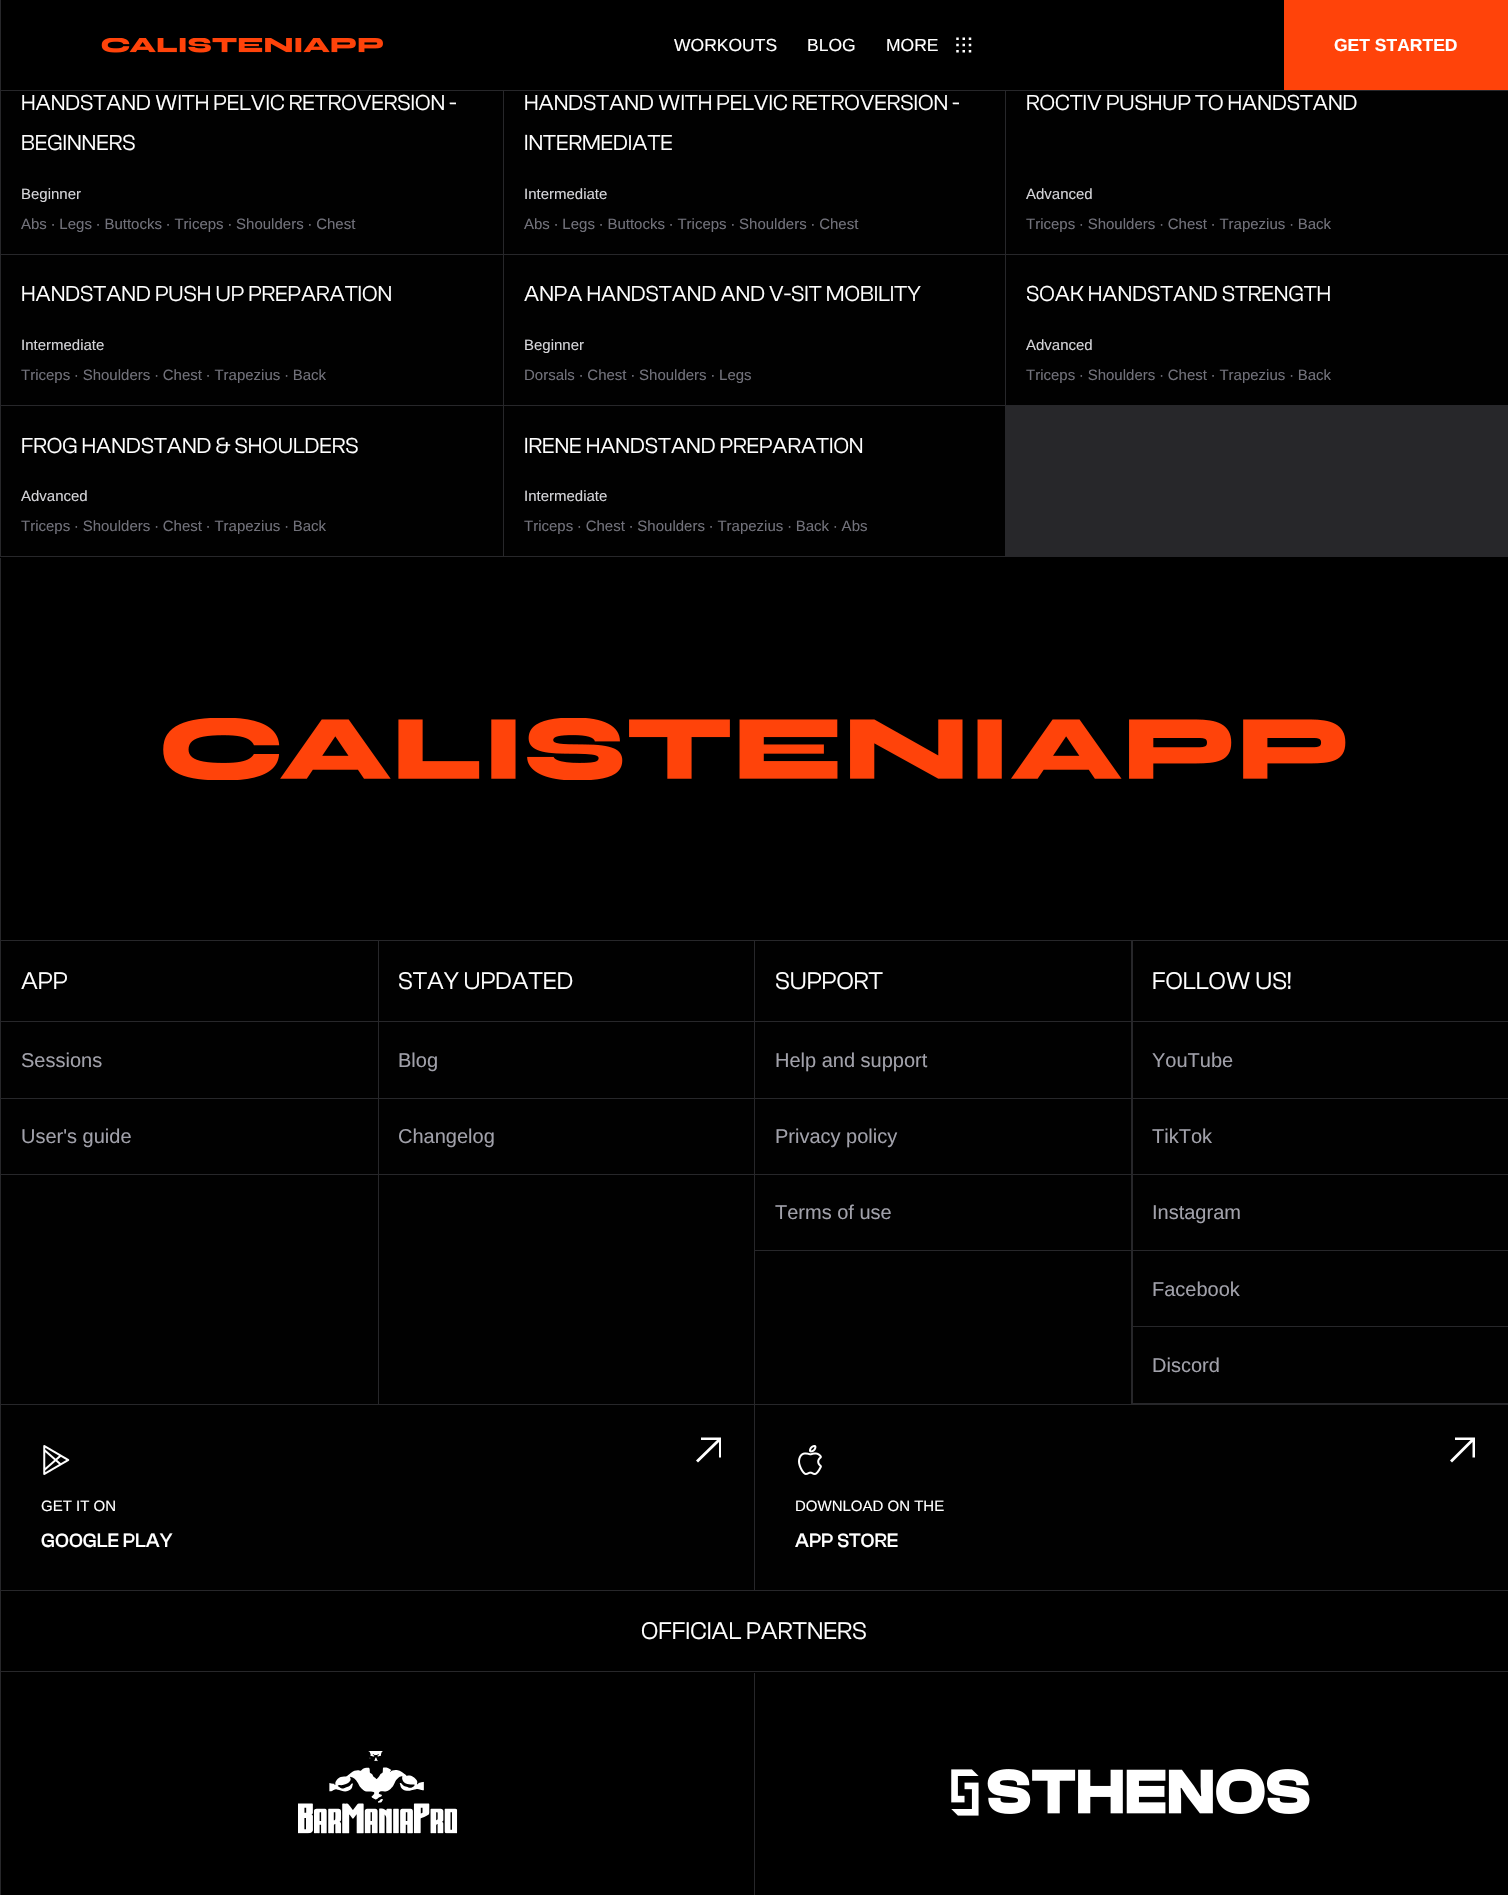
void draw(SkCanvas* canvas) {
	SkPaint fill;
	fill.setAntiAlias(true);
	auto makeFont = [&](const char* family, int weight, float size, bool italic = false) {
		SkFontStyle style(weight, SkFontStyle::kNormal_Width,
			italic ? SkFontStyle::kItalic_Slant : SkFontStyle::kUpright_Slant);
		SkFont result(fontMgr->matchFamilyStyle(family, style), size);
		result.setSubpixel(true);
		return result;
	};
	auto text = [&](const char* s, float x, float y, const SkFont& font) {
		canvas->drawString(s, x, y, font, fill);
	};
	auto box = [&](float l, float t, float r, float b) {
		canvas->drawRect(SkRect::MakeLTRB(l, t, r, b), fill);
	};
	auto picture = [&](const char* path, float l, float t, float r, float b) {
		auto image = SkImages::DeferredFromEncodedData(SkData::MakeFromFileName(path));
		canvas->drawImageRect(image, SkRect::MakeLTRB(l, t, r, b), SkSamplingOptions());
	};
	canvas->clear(0xFF000000);
	fill.setColor(0xFF27272A);
	box(0, 0, 1, 556);
	box(0, 90, 1508, 91);
	picture("image0.png", 101, 38, 383, 53);
	picture("image1.png", 956, 37, 972, 53);
	fill.setColor(0xFFFF430A);
	box(1284, 0, 1508, 90);
	fill.setColor(0xFF27272A);
	box(0, 556, 1508, 557);
	box(1, 91, 1508, 556);
	fill.setColor(0xFF010101);
	box(1, 91, 503, 254);
	box(504, 91, 1005, 254);
	box(1006, 91, 1508, 254);
	box(1, 255, 503, 405);
	box(504, 255, 1005, 405);
	box(1006, 255, 1508, 405);
	box(1, 406, 503, 556);
	box(504, 406, 1005, 556);
	fill.setColor(0xFF27272A);
	box(0, 558, 1, 1895);
	picture("image2.png", 163, 718, 1346, 780);
	box(1, 940, 1508, 1591);
	fill.setColor(0xFF010101);
	box(1, 941, 378, 1404);
	fill.setColor(0xFF27272A);
	box(1, 1021, 378, 1022);
	box(1, 1174, 378, 1175);
	box(1, 1098, 378, 1099);
	fill.setColor(0xFF010101);
	box(379, 941, 754, 1404);
	fill.setColor(0xFF27272A);
	box(379, 1021, 754, 1022);
	box(379, 1174, 754, 1175);
	box(379, 1098, 754, 1099);
	fill.setColor(0xFF010101);
	box(755, 941, 1131, 1404);
	fill.setColor(0xFF27272A);
	box(755, 1021, 1131, 1022);
	box(755, 1250, 1131, 1251);
	box(755, 1098, 1131, 1099);
	box(755, 1174, 1131, 1175);
	fill.setColor(0xFF010101);
	box(1133, 941, 1508, 1403);
	fill.setColor(0xFF27272A);
	box(1133, 1021, 1508, 1022);
	box(1133, 1098, 1508, 1099);
	box(1133, 1174, 1508, 1175);
	box(1133, 1250, 1508, 1251);
	box(1133, 1326, 1508, 1327);
	fill.setColor(0xFF010101);
	box(1, 1405, 754, 1590);
	picture("image3.png", 43, 1445, 70, 1475);
	fill.setColor(0xFFFFFFFF);
	canvas->drawPath(SkPathBuilder().moveTo(701, 1437.5f).lineTo(701, 1440).lineTo(717, 1440).lineTo(696, 1460.5f).lineTo(698, 1462.5f).lineTo(719, 1442).lineTo(719, 1457.5f).lineTo(721, 1457.5f).lineTo(721, 1437.5f).close().detach(), fill);
	fill.setColor(0xFF010101);
	box(755, 1405, 1508, 1590);
	picture("image4.png", 798, 1445, 822, 1475);
	fill.setColor(0xFFFFFFFF);
	canvas->drawPath(SkPathBuilder().moveTo(1455, 1437.5f).lineTo(1455, 1440).lineTo(1470.5f, 1440).lineTo(1450, 1460.5f).lineTo(1452, 1462.5f).lineTo(1472.5f, 1442).lineTo(1472.5f, 1457.5f).lineTo(1475, 1457.5f).lineTo(1475, 1437.5f).close().detach(), fill);
	fill.setColor(0xFF27272A);
	box(1, 1671, 1508, 1672);
	box(754, 1673, 755, 1895);
	picture("image5.png", 298, 1751, 458, 1834);
	picture("image6.png", 951, 1769, 1310, 1816);
	auto font1 = makeFont("Liberation Sans", 400, 17.5f);
	fill.setColor(0xFFFFFFFF);
	text("WORKOUTS", 674, 51, font1);
	text("BLOG", 807, 51, font1);
	text("MORE", 886, 51, font1);
	auto font2 = makeFont("Liberation Sans", 700, 17.5f);
	text("GET STARTED", 1334, 51, font2);
	auto font3 = makeFont("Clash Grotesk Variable", 400, 22.5f);
	text("HANDSTAND WITH PELVIC RETROVERSION -", 21, 110, font3);
	text("BEGINNERS", 21, 150, font3);
	auto font4 = makeFont("Liberation Sans", 400, 15);
	fill.setColor(0xFFD4D4D8);
	text("Beginner", 21, 199, font4);
	fill.setColor(0xFF71717A);
	text("Abs ∙ Legs ∙ Buttocks ∙ Triceps ∙ Shoulders ∙ Chest", 21, 229, font4);
	fill.setColor(0xFFFFFFFF);
	text("HANDSTAND WITH PELVIC RETROVERSION -", 524, 110, font3);
	text("INTERMEDIATE", 524, 150, font3);
	fill.setColor(0xFFD4D4D8);
	text("Intermediate", 524, 199, font4);
	fill.setColor(0xFF71717A);
	text("Abs ∙ Legs ∙ Buttocks ∙ Triceps ∙ Shoulders ∙ Chest", 524, 229, font4);
	fill.setColor(0xFFFFFFFF);
	text("ROCTIV PUSHUP TO HANDSTAND", 1026, 110, font3);
	fill.setColor(0xFFD4D4D8);
	text("Advanced", 1026, 199, font4);
	fill.setColor(0xFF71717A);
	text("Triceps ∙ Shoulders ∙ Chest ∙ Trapezius ∙ Back", 1026, 229, font4);
	fill.setColor(0xFFFFFFFF);
	text("HANDSTAND PUSH UP PREPARATION", 21, 301, font3);
	fill.setColor(0xFFD4D4D8);
	text("Intermediate", 21, 350, font4);
	fill.setColor(0xFF71717A);
	text("Triceps ∙ Shoulders ∙ Chest ∙ Trapezius ∙ Back", 21, 380, font4);
	fill.setColor(0xFFFFFFFF);
	text("ANPA HANDSTAND AND V-SIT MOBILITY", 524, 301, font3);
	fill.setColor(0xFFD4D4D8);
	text("Beginner", 524, 350, font4);
	fill.setColor(0xFF71717A);
	text("Dorsals ∙ Chest ∙ Shoulders ∙ Legs", 524, 380, font4);
	fill.setColor(0xFFFFFFFF);
	text("SOAK HANDSTAND STRENGTH", 1026, 301, font3);
	fill.setColor(0xFFD4D4D8);
	text("Advanced", 1026, 350, font4);
	fill.setColor(0xFF71717A);
	text("Triceps ∙ Shoulders ∙ Chest ∙ Trapezius ∙ Back", 1026, 380, font4);
	fill.setColor(0xFFFFFFFF);
	text("FROG HANDSTAND & SHOULDERS", 21, 453, font3);
	fill.setColor(0xFFD4D4D8);
	text("Advanced", 21, 501, font4);
	fill.setColor(0xFF71717A);
	text("Triceps ∙ Shoulders ∙ Chest ∙ Trapezius ∙ Back", 21, 531, font4);
	fill.setColor(0xFFFFFFFF);
	text("IRENE HANDSTAND PREPARATION", 524, 453, font3);
	fill.setColor(0xFFD4D4D8);
	text("Intermediate", 524, 501, font4);
	fill.setColor(0xFF71717A);
	text("Triceps ∙ Chest ∙ Shoulders ∙ Trapezius ∙ Back ∙ Abs", 524, 531, font4);
	auto font5 = makeFont("Clash Grotesk Variable", 400, 25);
	fill.setColor(0xFFFFFFFF);
	text("APP", 21, 989, font5);
	auto font6 = makeFont("Liberation Sans", 400, 20);
	fill.setColor(0xFFA1A1AA);
	text("Sessions", 21, 1067, font6);
	text("User's guide", 21, 1143, font6);
	fill.setColor(0xFFFFFFFF);
	text("STAY UPDATED", 398, 989, font5);
	fill.setColor(0xFFA1A1AA);
	text("Blog", 398, 1067, font6);
	text("Changelog", 398, 1143, font6);
	fill.setColor(0xFFFFFFFF);
	text("SUPPORT", 775, 989, font5);
	fill.setColor(0xFFA1A1AA);
	text("Help and support", 775, 1067, font6);
	text("Privacy policy", 775, 1143, font6);
	text("Terms of use", 775, 1219, font6);
	fill.setColor(0xFFFFFFFF);
	text("FOLLOW US!", 1152, 989, font5);
	fill.setColor(0xFFA1A1AA);
	text("YouTube", 1152, 1067, font6);
	text("TikTok", 1152, 1143, font6);
	text("Instagram", 1152, 1219, font6);
	text("Facebook", 1152, 1296, font6);
	text("Discord", 1152, 1372, font6);
	fill.setColor(0xFFFFFFFF);
	text("GET IT ON", 41, 1511, font4);
	auto font7 = makeFont("Clash Grotesk Variable", 500, 20);
	text("GOOGLE PLAY", 41, 1547, font7);
	text("DOWNLOAD ON THE", 795, 1511, font4);
	text("APP STORE", 795, 1547, font7);
	text("OFFICIAL PARTNERS", 641, 1639, font5);
}
